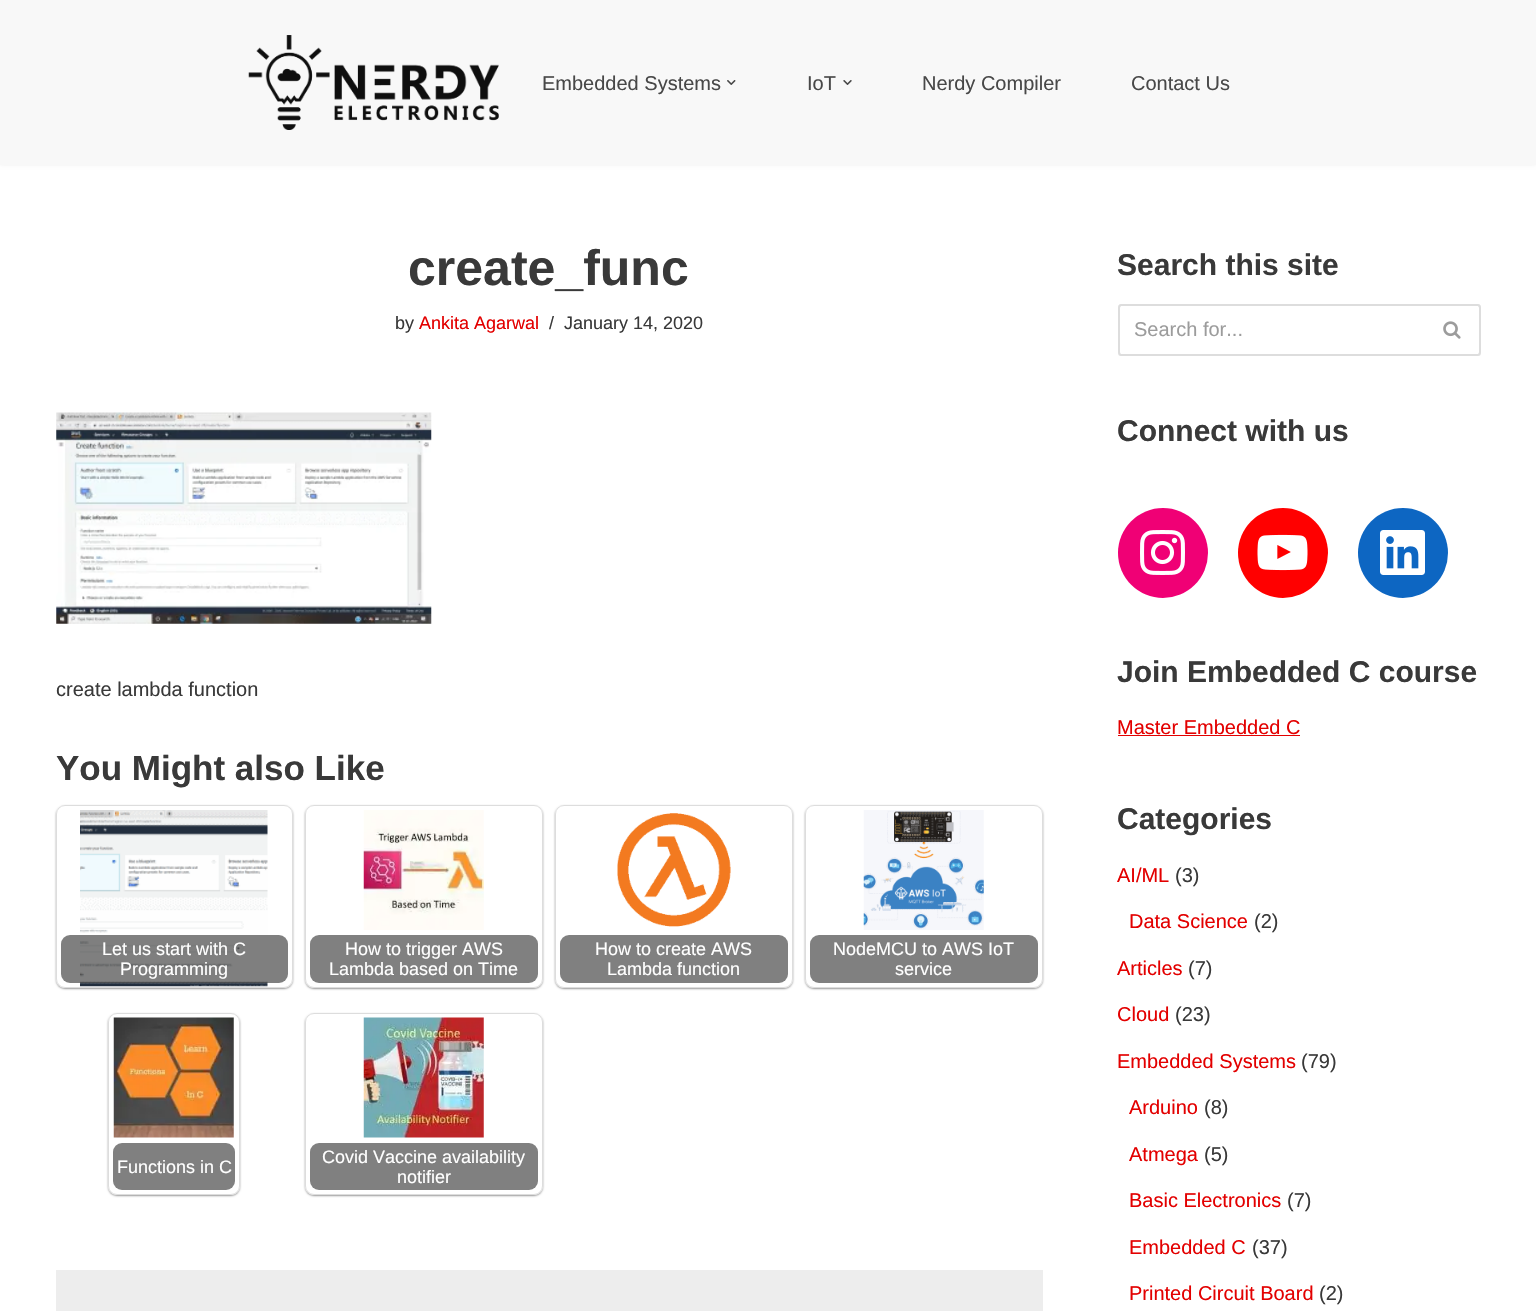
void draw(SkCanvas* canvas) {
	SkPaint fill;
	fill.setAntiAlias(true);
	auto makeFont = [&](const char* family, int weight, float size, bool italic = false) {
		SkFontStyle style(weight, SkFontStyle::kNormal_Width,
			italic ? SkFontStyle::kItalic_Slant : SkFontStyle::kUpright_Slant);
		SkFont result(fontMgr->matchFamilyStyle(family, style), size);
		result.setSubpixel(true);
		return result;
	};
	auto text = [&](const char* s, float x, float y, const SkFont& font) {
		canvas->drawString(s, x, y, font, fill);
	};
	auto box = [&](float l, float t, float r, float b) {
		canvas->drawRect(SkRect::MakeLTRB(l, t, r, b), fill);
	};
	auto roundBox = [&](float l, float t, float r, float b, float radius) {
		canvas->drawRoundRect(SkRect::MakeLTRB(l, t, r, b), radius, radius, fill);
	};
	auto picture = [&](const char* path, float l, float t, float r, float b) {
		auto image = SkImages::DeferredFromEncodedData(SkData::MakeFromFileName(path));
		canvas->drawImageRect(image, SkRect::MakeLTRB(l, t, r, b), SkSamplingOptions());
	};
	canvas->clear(0xFFFFFFFF);
	fill.setColor(0x1A000000);
	fill.setMaskFilter(SkMaskFilter::MakeBlur(kNormal_SkBlurStyle, 2));
	canvas->drawRect(SkRect::MakeLTRB(0, -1, 1536, 164), fill);
	fill.setMaskFilter(nullptr);
	fill.setColor(0xFFF8F8F8);
	box(0, 0, 1536, 165);
	picture("image0.png", 248, 35, 499, 130);
	picture("image1.png", 727, 80, 736, 85);
	picture("image2.png", 843, 80, 852, 85);
	picture("image3.png", 56, 412, 432, 624);
	canvas->save();
	canvas->clipPath(SkPathBuilder(SkPathFillType::kEvenOdd).moveTo(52, 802).lineTo(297, 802).lineTo(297, 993).lineTo(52, 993).close().moveTo(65, 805).lineTo(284, 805).cubicTo(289, 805, 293, 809, 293, 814).lineTo(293, 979).cubicTo(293, 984, 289, 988, 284, 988).lineTo(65, 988).cubicTo(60, 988, 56, 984, 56, 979).lineTo(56, 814).cubicTo(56, 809, 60, 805, 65, 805).close().detach(), true);
	fill.setColor(0x66000000);
	fill.setMaskFilter(SkMaskFilter::MakeBlur(kNormal_SkBlurStyle, 1));
	canvas->drawRoundRect(SkRect::MakeLTRB(56, 806, 293, 989), 9, 9, fill);
	fill.setMaskFilter(nullptr);
	canvas->restore();
	fill.setStyle(SkPaint::kStroke_Style);
	fill.setStrokeWidth(1);
	fill.setColor(0xFFDDDDDD);
	canvas->drawRoundRect(SkRect::MakeLTRB(56.5f, 805.5f, 292.5f, 987.5f), 8.5f, 8.5f, fill);
	picture("image4.png", 80, 810, 268, 987);
	fill.setStyle(SkPaint::kFill_Style);
	fill.setColor(0x80000000);
	roundBox(61, 935, 288, 983, 9);
	canvas->save();
	canvas->clipPath(SkPathBuilder(SkPathFillType::kEvenOdd).moveTo(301, 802).lineTo(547, 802).lineTo(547, 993).lineTo(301, 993).close().moveTo(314, 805).lineTo(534, 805).cubicTo(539, 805, 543, 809, 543, 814).lineTo(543, 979).cubicTo(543, 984, 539, 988, 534, 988).lineTo(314, 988).cubicTo(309, 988, 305, 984, 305, 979).lineTo(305, 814).cubicTo(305, 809, 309, 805, 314, 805).close().detach(), true);
	fill.setColor(0x66000000);
	fill.setMaskFilter(SkMaskFilter::MakeBlur(kNormal_SkBlurStyle, 1));
	canvas->drawRoundRect(SkRect::MakeLTRB(305, 806, 543, 989), 9, 9, fill);
	fill.setMaskFilter(nullptr);
	canvas->restore();
	fill.setStyle(SkPaint::kStroke_Style);
	fill.setColor(0xFFDDDDDD);
	canvas->drawRoundRect(SkRect::MakeLTRB(305.5f, 805.5f, 542.5f, 987.5f), 8.5f, 8.5f, fill);
	picture("image5.png", 363, 810, 484, 930);
	fill.setStyle(SkPaint::kFill_Style);
	fill.setColor(0xFF808080);
	roundBox(310, 935, 538, 983, 9);
	canvas->save();
	canvas->clipPath(SkPathBuilder(SkPathFillType::kEvenOdd).moveTo(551, 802).lineTo(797, 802).lineTo(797, 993).lineTo(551, 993).close().moveTo(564, 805).lineTo(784, 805).cubicTo(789, 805, 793, 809, 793, 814).lineTo(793, 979).cubicTo(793, 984, 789, 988, 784, 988).lineTo(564, 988).cubicTo(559, 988, 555, 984, 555, 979).lineTo(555, 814).cubicTo(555, 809, 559, 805, 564, 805).close().detach(), true);
	fill.setColor(0x66000000);
	fill.setMaskFilter(SkMaskFilter::MakeBlur(kNormal_SkBlurStyle, 1));
	canvas->drawRoundRect(SkRect::MakeLTRB(555, 806, 793, 989), 9, 9, fill);
	fill.setMaskFilter(nullptr);
	canvas->restore();
	fill.setStyle(SkPaint::kStroke_Style);
	fill.setColor(0xFFDDDDDD);
	canvas->drawRoundRect(SkRect::MakeLTRB(555.5f, 805.5f, 792.5f, 987.5f), 8.5f, 8.5f, fill);
	picture("image6.png", 617, 813, 731, 927);
	fill.setStyle(SkPaint::kFill_Style);
	fill.setColor(0xFF808080);
	roundBox(560, 935, 788, 983, 9);
	canvas->save();
	canvas->clipPath(SkPathBuilder(SkPathFillType::kEvenOdd).moveTo(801, 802).lineTo(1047, 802).lineTo(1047, 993).lineTo(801, 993).close().moveTo(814, 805).lineTo(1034, 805).cubicTo(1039, 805, 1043, 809, 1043, 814).lineTo(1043, 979).cubicTo(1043, 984, 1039, 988, 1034, 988).lineTo(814, 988).cubicTo(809, 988, 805, 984, 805, 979).lineTo(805, 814).cubicTo(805, 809, 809, 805, 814, 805).close().detach(), true);
	fill.setColor(0x66000000);
	fill.setMaskFilter(SkMaskFilter::MakeBlur(kNormal_SkBlurStyle, 1));
	canvas->drawRoundRect(SkRect::MakeLTRB(805, 806, 1043, 989), 9, 9, fill);
	fill.setMaskFilter(nullptr);
	canvas->restore();
	fill.setStyle(SkPaint::kStroke_Style);
	fill.setColor(0xFFDDDDDD);
	canvas->drawRoundRect(SkRect::MakeLTRB(805.5f, 805.5f, 1042.5f, 987.5f), 8.5f, 8.5f, fill);
	picture("image7.png", 863, 810, 984, 930);
	fill.setStyle(SkPaint::kFill_Style);
	fill.setColor(0xFF808080);
	roundBox(810, 935, 1038, 983, 9);
	canvas->save();
	canvas->clipPath(SkPathBuilder(SkPathFillType::kEvenOdd).moveTo(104, 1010).lineTo(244, 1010).lineTo(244, 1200).lineTo(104, 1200).close().moveTo(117, 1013).lineTo(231, 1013).cubicTo(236, 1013, 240, 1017, 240, 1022).lineTo(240, 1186).cubicTo(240, 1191, 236, 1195, 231, 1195).lineTo(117, 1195).cubicTo(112, 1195, 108, 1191, 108, 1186).lineTo(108, 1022).cubicTo(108, 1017, 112, 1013, 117, 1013).close().detach(), true);
	fill.setColor(0x66000000);
	fill.setMaskFilter(SkMaskFilter::MakeBlur(kNormal_SkBlurStyle, 1));
	canvas->drawRoundRect(SkRect::MakeLTRB(108, 1014, 240, 1196), 9, 9, fill);
	fill.setMaskFilter(nullptr);
	canvas->restore();
	fill.setStyle(SkPaint::kStroke_Style);
	fill.setColor(0xFFDDDDDD);
	canvas->drawRoundRect(SkRect::MakeLTRB(108.5f, 1013.5f, 239.5f, 1194.5f), 8.5f, 8.5f, fill);
	picture("image8.png", 113, 1017, 234, 1138);
	fill.setStyle(SkPaint::kFill_Style);
	fill.setColor(0xFF808080);
	roundBox(113, 1143, 235, 1190, 9);
	canvas->save();
	canvas->clipPath(SkPathBuilder(SkPathFillType::kEvenOdd).moveTo(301, 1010).lineTo(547, 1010).lineTo(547, 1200).lineTo(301, 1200).close().moveTo(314, 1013).lineTo(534, 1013).cubicTo(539, 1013, 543, 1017, 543, 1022).lineTo(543, 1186).cubicTo(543, 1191, 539, 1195, 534, 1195).lineTo(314, 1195).cubicTo(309, 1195, 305, 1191, 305, 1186).lineTo(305, 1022).cubicTo(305, 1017, 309, 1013, 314, 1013).close().detach(), true);
	fill.setColor(0x66000000);
	fill.setMaskFilter(SkMaskFilter::MakeBlur(kNormal_SkBlurStyle, 1));
	canvas->drawRoundRect(SkRect::MakeLTRB(305, 1014, 543, 1196), 9, 9, fill);
	fill.setMaskFilter(nullptr);
	canvas->restore();
	fill.setStyle(SkPaint::kStroke_Style);
	fill.setColor(0xFFDDDDDD);
	canvas->drawRoundRect(SkRect::MakeLTRB(305.5f, 1013.5f, 542.5f, 1194.5f), 8.5f, 8.5f, fill);
	picture("image9.png", 363, 1017, 484, 1138);
	fill.setStyle(SkPaint::kFill_Style);
	fill.setColor(0xFF808080);
	roundBox(310, 1143, 538, 1190, 9);
	fill.setColor(0xFFEDEDED);
	box(56, 1270, 1043, 1311);
	fill.setColor(0xFFDDDDDD);
	canvas->drawPath(SkPathBuilder(SkPathFillType::kEvenOdd).moveTo(1121, 304).lineTo(1425, 304).lineTo(1425, 356).lineTo(1121, 356).cubicTo(1119, 356, 1118, 355, 1118, 352).lineTo(1118, 308).cubicTo(1118, 305, 1119, 304, 1121, 304).close().moveTo(1121, 306).lineTo(1425, 306).lineTo(1425, 354).lineTo(1121, 354).cubicTo(1121, 354, 1120, 353, 1120, 352).lineTo(1120, 308).cubicTo(1120, 307, 1121, 306, 1121, 306).close().detach(), fill);
	canvas->drawPath(SkPathBuilder(SkPathFillType::kEvenOdd).moveTo(1425, 304).lineTo(1478, 304).cubicTo(1480, 304, 1481, 305, 1481, 308).lineTo(1481, 352).cubicTo(1481, 355, 1480, 356, 1478, 356).lineTo(1425, 356).close().moveTo(1425, 306).lineTo(1478, 306).cubicTo(1478, 306, 1479, 307, 1479, 308).lineTo(1479, 352).cubicTo(1479, 353, 1478, 354, 1478, 354).lineTo(1425, 354).close().detach(), fill);
	picture("image10.png", 1443, 321, 1461, 339);
	fill.setColor(0xFFF00075);
	canvas->drawCircle(1163, 553, 45, fill);
	picture("image11.png", 1140, 530, 1185, 575);
	fill.setColor(0xFFFF0000);
	canvas->drawCircle(1283, 553, 45, fill);
	picture("image12.png", 1257, 534, 1308, 571);
	fill.setColor(0xFF0D66C2);
	canvas->drawCircle(1403, 553, 45, fill);
	picture("image13.png", 1380, 530, 1425, 575);
	fill.setColor(0xFFE30000);
	box(1118, 735, 1300, 736);
	auto font1 = makeFont("Liberation Sans", 400, 20);
	fill.setColor(0xFF484848);
	text("Embedded Systems", 542, 90, font1);
	text("IoT", 807, 90, font1);
	text("Nerdy Compiler", 922, 90, font1);
	text("Contact Us", 1131, 90, font1);
	auto font2 = makeFont("Liberation Sans", 700, 50);
	fill.setColor(0xFF393939);
	text("create_func", 408, 285, font2);
	auto font3 = makeFont("Liberation Sans", 400, 18);
	text("by", 395, 329, font3);
	fill.setColor(0xFFE30000);
	text("Ankita Agarwal", 419, 329, font3);
	fill.setColor(0xFF393939);
	text("/", 549, 329, font3);
	text("January 14, 2020", 564, 329, font3);
	text("create lambda function", 56, 696, font1);
	auto font4 = makeFont("Liberation Sans", 700, 35);
	text("You Might also Like", 56, 780, font4);
	fill.setColor(0xFFFFFFFF);
	text("Let us start with C", 102, 955, font3);
	text("Programming", 120, 975, font3);
	text("How to trigger AWS", 345, 955, font3);
	text("Lambda based on Time", 329, 975, font3);
	text("How to create AWS", 595, 955, font3);
	text("Lambda function", 607, 975, font3);
	text("NodeMCU to AWS IoT", 833, 955, font3);
	text("service", 895, 975, font3);
	text("Functions in C", 117, 1173, font3);
	text("Covid Vaccine availability", 322, 1163, font3);
	text("notifier", 397, 1183, font3);
	auto font5 = makeFont("Liberation Sans", 700, 30);
	fill.setColor(0xFF393939);
	text("Search this site", 1117, 275, font5);
	fill.setColor(0xFF9C9C9C);
	text("Search for...", 1134, 336, font1);
	fill.setColor(0xFF393939);
	text("Connect with us", 1117, 441, font5);
	text("Join Embedded C course", 1117, 682, font5);
	fill.setColor(0xFFE30000);
	text("Master Embedded C", 1117, 734, font1);
	fill.setColor(0xFF393939);
	text("Categories", 1117, 829, font5);
	fill.setColor(0xFFE30000);
	text("AI/ML", 1117, 882, font1);
	fill.setColor(0xFF393939);
	text("(3)", 1175, 882, font1);
	fill.setColor(0xFFE30000);
	text("Data Science", 1129, 928, font1);
	fill.setColor(0xFF393939);
	text("(2)", 1254, 928, font1);
	fill.setColor(0xFFE30000);
	text("Articles", 1117, 975, font1);
	fill.setColor(0xFF393939);
	text("(7)", 1188, 975, font1);
	fill.setColor(0xFFE30000);
	text("Cloud", 1117, 1021, font1);
	fill.setColor(0xFF393939);
	text("(23)", 1175, 1021, font1);
	fill.setColor(0xFFE30000);
	text("Embedded Systems", 1117, 1068, font1);
	fill.setColor(0xFF393939);
	text("(79)", 1301, 1068, font1);
	fill.setColor(0xFFE30000);
	text("Arduino", 1129, 1114, font1);
	fill.setColor(0xFF393939);
	text("(8)", 1204, 1114, font1);
	fill.setColor(0xFFE30000);
	text("Atmega", 1129, 1161, font1);
	fill.setColor(0xFF393939);
	text("(5)", 1204, 1161, font1);
	fill.setColor(0xFFE30000);
	text("Basic Electronics", 1129, 1207, font1);
	fill.setColor(0xFF393939);
	text("(7)", 1287, 1207, font1);
	fill.setColor(0xFFE30000);
	text("Embedded C", 1129, 1254, font1);
	fill.setColor(0xFF393939);
	text("(37)", 1252, 1254, font1);
	fill.setColor(0xFFE30000);
	text("Printed Circuit Board", 1129, 1300, font1);
	fill.setColor(0xFF393939);
	text("(2)", 1319, 1300, font1);
}
